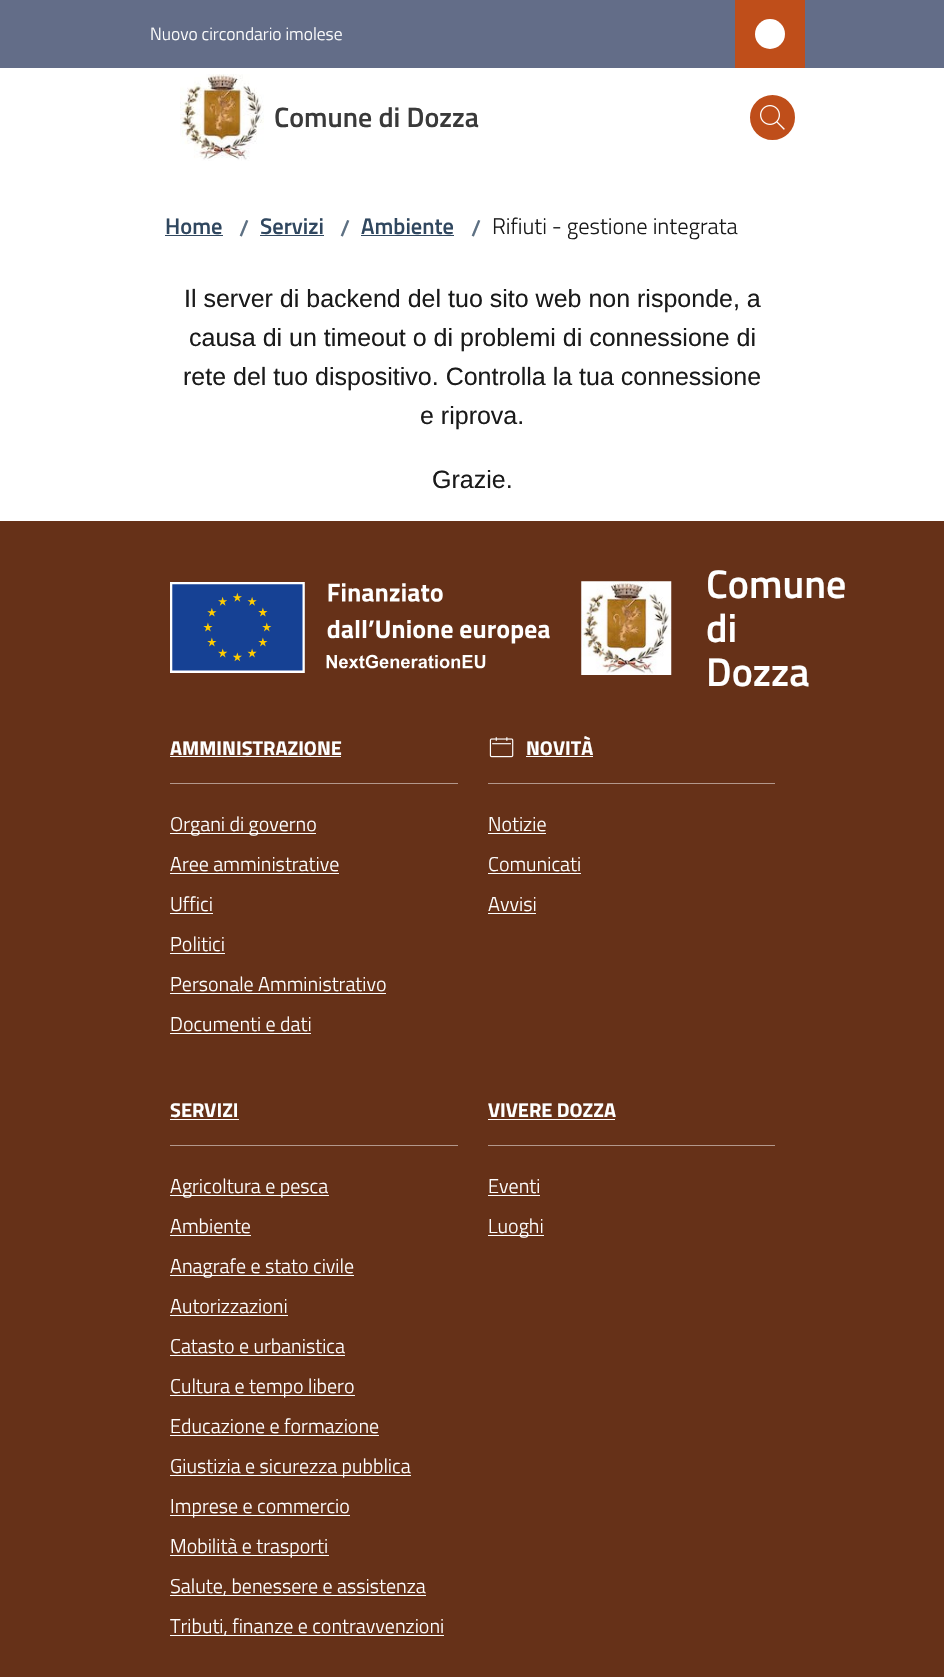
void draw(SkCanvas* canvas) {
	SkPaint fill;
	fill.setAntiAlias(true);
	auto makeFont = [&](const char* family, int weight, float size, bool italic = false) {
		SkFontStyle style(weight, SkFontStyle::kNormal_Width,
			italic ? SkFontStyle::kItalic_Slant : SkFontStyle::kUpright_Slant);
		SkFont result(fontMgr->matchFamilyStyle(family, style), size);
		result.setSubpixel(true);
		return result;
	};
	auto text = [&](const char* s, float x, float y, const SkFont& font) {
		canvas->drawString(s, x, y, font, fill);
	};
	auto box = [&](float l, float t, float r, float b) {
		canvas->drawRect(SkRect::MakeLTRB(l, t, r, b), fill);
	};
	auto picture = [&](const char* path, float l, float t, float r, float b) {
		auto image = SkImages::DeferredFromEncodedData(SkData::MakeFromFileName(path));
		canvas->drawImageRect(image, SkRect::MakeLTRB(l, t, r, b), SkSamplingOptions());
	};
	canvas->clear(0xFFFFFFFF);
	fill.setColor(0xFF636D88);
	box(0, 0, 944, 68);
	fill.setColor(0xFFBF4E1A);
	box(735, 0, 805, 68);
	fill.setColor(0xFFFFFFFF);
	canvas->drawCircle(770, 34, 15, fill);
	picture("image0.png", 180, 74, 264, 161);
	fill.setColor(0xFFBF4E1A);
	canvas->drawCircle(772.5f, 117.5f, 21, fill);
	fill.setStyle(SkPaint::kStroke_Style);
	fill.setStrokeWidth(3);
	canvas->drawCircle(772.5f, 117.5f, 21, fill);
	picture("image1.png", 760, 105, 785, 130);
	fill.setStyle(SkPaint::kFill_Style);
	fill.setColor(0xFF30475F);
	box(165, 235, 223, 236);
	box(260, 235, 324, 236);
	box(361, 235, 454, 236);
	fill.setColor(0xFF663118);
	box(0, 521, 944, 1677);
	picture("image2.png", 170, 582, 550, 673);
	picture("image3.png", 581, 581, 672, 675);
	fill.setColor(0xFFB3988C);
	box(170, 783, 458, 784);
	fill.setColor(0xFFFFFFFF);
	box(170, 756, 341, 757);
	box(170, 833, 316, 834);
	box(170, 873, 339, 874);
	box(170, 913, 213, 914);
	box(170, 953, 225, 954);
	box(170, 993, 386, 994);
	box(170, 1033, 311, 1034);
	fill.setColor(0xFFB3988C);
	box(488, 783, 775, 784);
	picture("image4.png", 489, 737, 514, 758);
	fill.setColor(0xFFFFFFFF);
	box(526, 756, 593, 757);
	box(488, 833, 546, 834);
	box(488, 873, 581, 874);
	box(488, 913, 536, 914);
	fill.setColor(0xFFB3988C);
	box(170, 1145, 458, 1146);
	fill.setColor(0xFFFFFFFF);
	box(170, 1119, 239, 1120);
	box(170, 1195, 329, 1196);
	box(170, 1235, 251, 1236);
	box(170, 1275, 354, 1276);
	box(170, 1315, 288, 1316);
	box(170, 1355, 345, 1356);
	box(170, 1395, 355, 1396);
	box(170, 1435, 379, 1436);
	box(170, 1475, 411, 1476);
	box(170, 1515, 350, 1516);
	box(170, 1555, 329, 1556);
	box(170, 1595, 426, 1596);
	box(170, 1635, 444, 1636);
	fill.setColor(0xFFB3988C);
	box(488, 1145, 775, 1146);
	fill.setColor(0xFFFFFFFF);
	box(488, 1119, 615, 1120);
	box(488, 1195, 540, 1196);
	box(488, 1235, 544, 1236);
	auto font1 = makeFont("Titillium Web", 300, 17.5f);
	text("Nuovo circondario imolese", 150, 40, font1);
	auto font2 = makeFont("Titillium Web", 600, 28);
	fill.setColor(0xFF3A3A3A);
	text("Comune di Dozza", 274, 127, font2);
	auto font3 = makeFont("Titillium Web", 600, 22.5f);
	fill.setColor(0xFF30475F);
	text("Home", 165, 234, font3);
	fill.setColor(0xFF5D7083);
	text("/", 239, 236, font3);
	fill.setColor(0xFF30475F);
	text("Servizi", 260, 234, font3);
	fill.setColor(0xFF5D7083);
	text("/", 340, 236, font3);
	fill.setColor(0xFF30475F);
	text("Ambiente", 361, 234, font3);
	fill.setColor(0xFF5D7083);
	text("/", 471, 236, font3);
	auto font4 = makeFont("Titillium Web", 300, 22.5f);
	fill.setColor(0xFF1A1A1A);
	text("Rifiuti - gestione integrata", 492, 234, font4);
	auto font5 = makeFont("Liberation Sans", 400, 25);
	text("Il server di backend del tuo sito web non risponde, a", 184, 307, font5);
	text("causa di un timeout o di problemi di connessione di", 189, 346, font5);
	text("rete del tuo dispositivo. Controlla la tua connessione", 183, 385, font5);
	text("e riprova.", 420, 424, font5);
	text("Grazie.", 432, 488, font5);
	auto font6 = makeFont("Titillium Web", 600, 40);
	fill.setColor(0xFFFFFFFF);
	text("Comune", 706, 598, font6);
	text("di", 706, 642, font6);
	text("Dozza", 706, 686, font6);
	auto font7 = makeFont("Titillium Web", 700, 20);
	text("AMMINISTRAZIONE", 170, 755, font7);
	auto font8 = makeFont("Titillium Web", 300, 20);
	text("Organi di governo", 170, 831, font8);
	text("Aree amministrative", 170, 871, font8);
	text("Uffici", 170, 911, font8);
	text("Politici", 170, 951, font8);
	text("Personale Amministrativo", 170, 991, font8);
	text("Documenti e dati", 170, 1031, font8);
	text("NOVITÀ", 526, 755, font7);
	text("Notizie", 488, 831, font8);
	text("Comunicati", 488, 871, font8);
	text("Avvisi", 488, 911, font8);
	text("SERVIZI", 170, 1117, font7);
	text("Agricoltura e pesca", 170, 1193, font8);
	text("Ambiente", 170, 1233, font8);
	text("Anagrafe e stato civile", 170, 1273, font8);
	text("Autorizzazioni", 170, 1313, font8);
	text("Catasto e urbanistica", 170, 1353, font8);
	text("Cultura e tempo libero", 170, 1393, font8);
	text("Educazione e formazione", 170, 1433, font8);
	text("Giustizia e sicurezza pubblica", 170, 1473, font8);
	text("Imprese e commercio", 170, 1513, font8);
	text("Mobilità e trasporti", 170, 1553, font8);
	text("Salute, benessere e assistenza", 170, 1593, font8);
	text("Tributi, finanze e contravvenzioni", 170, 1633, font8);
	text("VIVERE DOZZA", 488, 1117, font7);
	text("Eventi", 488, 1193, font8);
	text("Luoghi", 488, 1233, font8);
}
